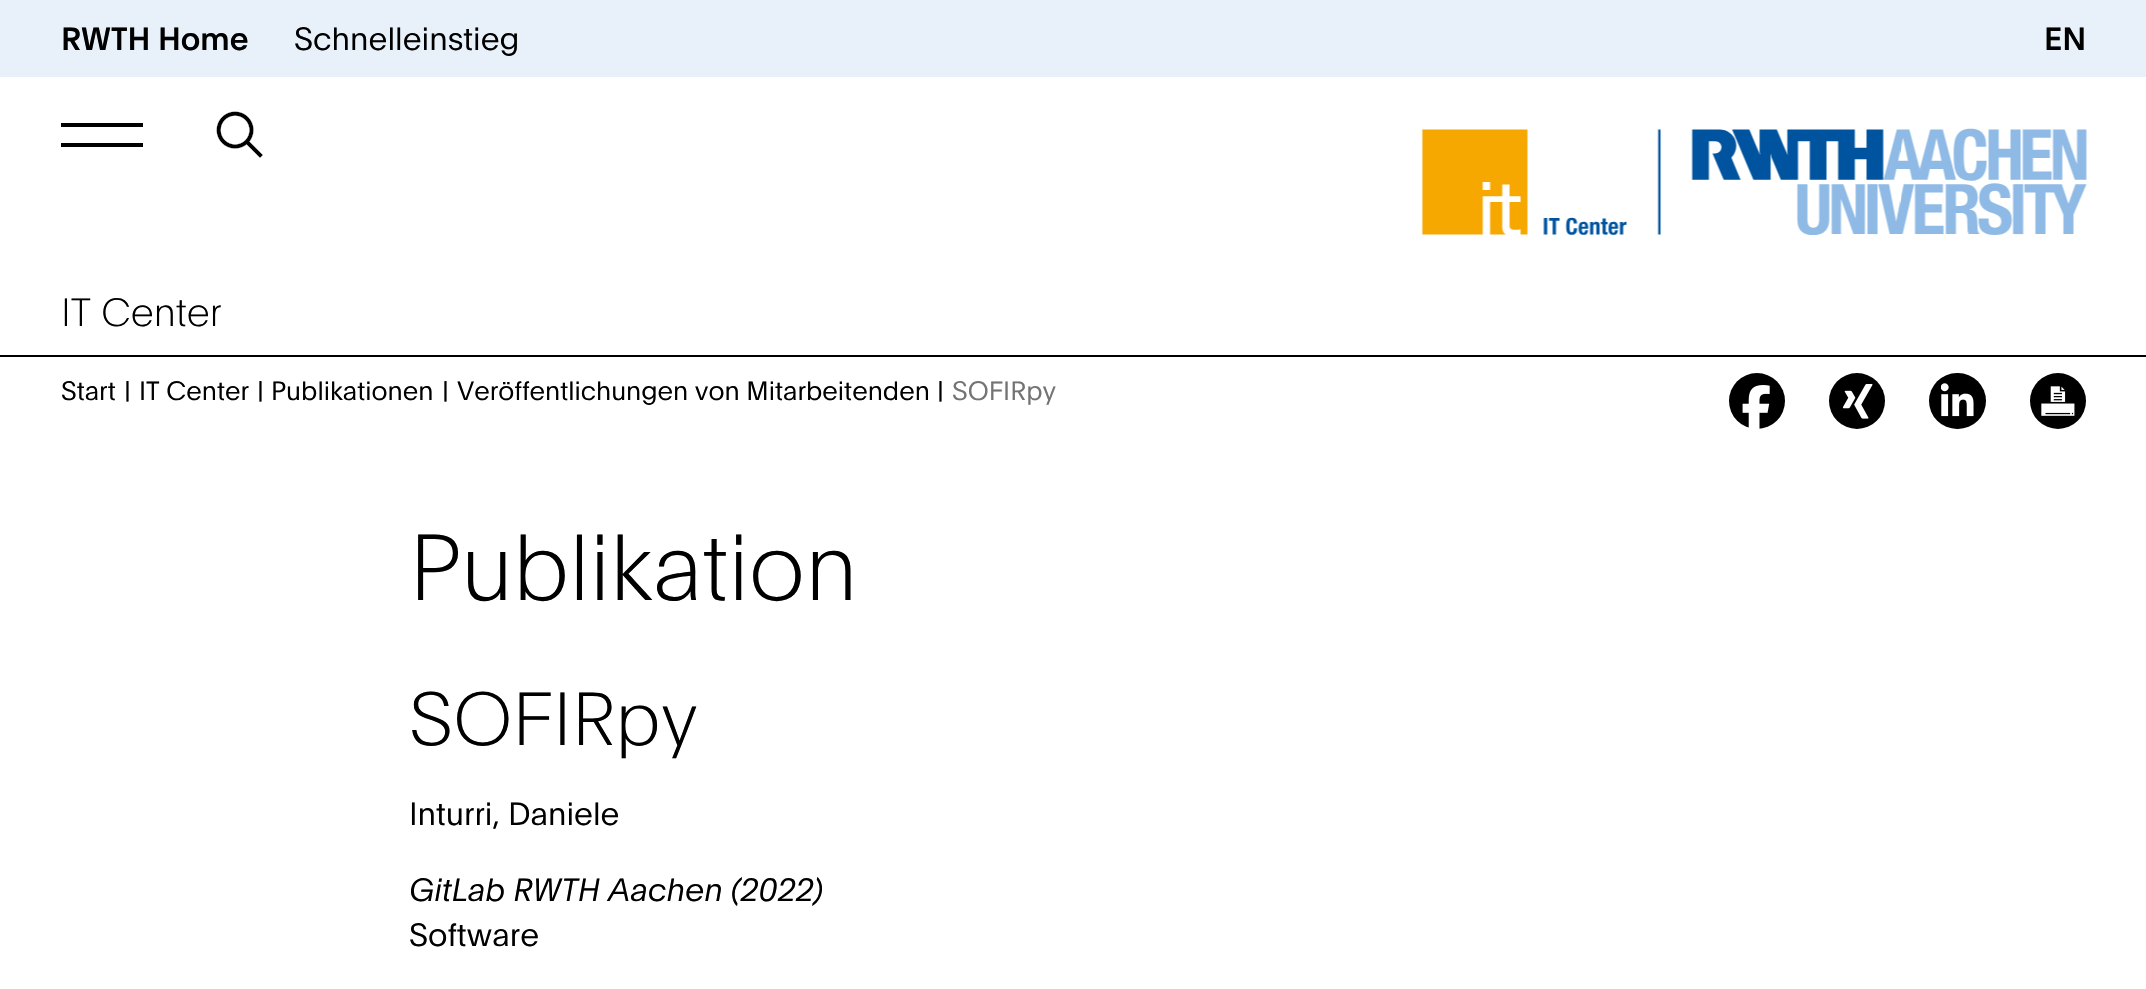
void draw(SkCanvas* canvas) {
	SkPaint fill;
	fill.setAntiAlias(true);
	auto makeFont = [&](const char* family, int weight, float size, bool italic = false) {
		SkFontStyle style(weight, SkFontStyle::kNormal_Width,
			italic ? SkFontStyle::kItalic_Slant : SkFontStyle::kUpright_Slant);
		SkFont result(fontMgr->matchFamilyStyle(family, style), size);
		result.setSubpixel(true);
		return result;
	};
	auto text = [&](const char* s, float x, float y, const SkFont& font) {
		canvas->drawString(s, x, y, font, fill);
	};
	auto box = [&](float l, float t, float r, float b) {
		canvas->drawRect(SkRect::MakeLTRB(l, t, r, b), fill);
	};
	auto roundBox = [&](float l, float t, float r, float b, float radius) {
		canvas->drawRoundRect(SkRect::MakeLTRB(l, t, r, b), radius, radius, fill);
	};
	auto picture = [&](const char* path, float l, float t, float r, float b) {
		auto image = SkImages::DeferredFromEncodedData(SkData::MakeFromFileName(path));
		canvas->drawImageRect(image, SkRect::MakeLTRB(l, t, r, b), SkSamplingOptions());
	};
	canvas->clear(0xFFFFFFFF);
	fill.setColor(0xFF000000);
	box(0, 355, 2146, 357);
	fill.setColor(0xFFE8F1FA);
	box(0, 0, 2146, 77);
	canvas->save();
	canvas->clipRect(SkRect::MakeLTRB(61, 123, 144, 147));
	fill.setColor(0xFF000000);
	canvas->drawPath(SkPathBuilder().moveTo(143, 122).lineTo(61, 122).lineTo(61, 127).lineTo(143, 127).close().moveTo(143, 143).lineTo(61, 143).lineTo(61, 147).lineTo(143, 147).close().detach(), fill);
	canvas->restore();
	picture("image0.png", 216, 111, 263, 158);
	picture("image1.png", 1421, 128, 2087, 235);
	canvas->drawCircle(1757, 401, 28, fill);
	picture("image2.png", 1742, 385, 1770, 429);
	canvas->drawCircle(1857, 401, 28, fill);
	picture("image3.png", 1843, 384, 1873, 419);
	roundBox(1929, 373, 1986, 429, 28);
	picture("image4.png", 1941, 383, 1974, 417);
	canvas->drawCircle(2058, 401, 28, fill);
	picture("image5.png", 2041, 386, 2075, 416);
	auto font1 = makeFont("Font", 500, 31.5f);
	text("RWTH Home", 61, 50, font1);
	auto font2 = makeFont("Font", 300, 31.5f);
	text("Schnelleinstieg", 294, 50, font2);
	text("EN", 2044, 50, font1);
	auto font3 = makeFont("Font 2", 300, 38.5f);
	text("IT Center", 61, 326, font3);
	auto font4 = makeFont("Font", 300, 25.9f);
	text("Start", 61, 400, font4);
	text("|", 124, 400, font4);
	text("IT Center", 139, 400, font4);
	text("|", 257, 400, font4);
	text("Publikationen", 271, 400, font4);
	text("|", 442, 400, font4);
	text("Veröffentlichungen von Mitarbeitenden", 457, 400, font4);
	text("|", 937, 400, font4);
	fill.setColor(0xFF737373);
	text("SOFIRpy", 952, 400, font4);
	auto font5 = makeFont("Font 2", 300, 91.5f);
	fill.setColor(0xFF000000);
	text("Publikation", 409, 600, font5);
	auto font6 = makeFont("Font 2", 300, 73.5f);
	text("SOFIRpy", 409, 745, font6);
	text("Inturri, Daniele", 409, 825, font2);
	auto font7 = makeFont("Font", 300, 31.5f, true);
	text("GitLab RWTH Aachen (2022)", 409, 901, font7);
	text("Software", 409, 946, font2);
}
